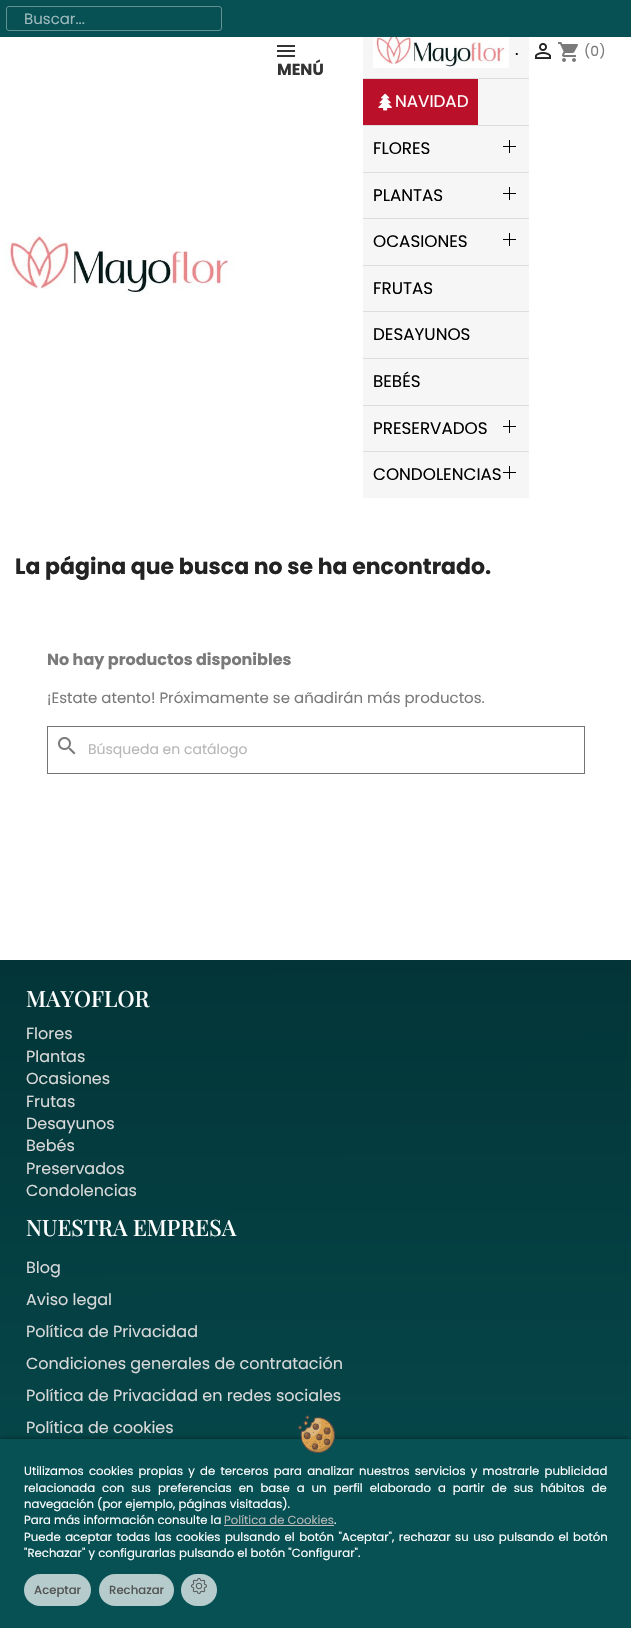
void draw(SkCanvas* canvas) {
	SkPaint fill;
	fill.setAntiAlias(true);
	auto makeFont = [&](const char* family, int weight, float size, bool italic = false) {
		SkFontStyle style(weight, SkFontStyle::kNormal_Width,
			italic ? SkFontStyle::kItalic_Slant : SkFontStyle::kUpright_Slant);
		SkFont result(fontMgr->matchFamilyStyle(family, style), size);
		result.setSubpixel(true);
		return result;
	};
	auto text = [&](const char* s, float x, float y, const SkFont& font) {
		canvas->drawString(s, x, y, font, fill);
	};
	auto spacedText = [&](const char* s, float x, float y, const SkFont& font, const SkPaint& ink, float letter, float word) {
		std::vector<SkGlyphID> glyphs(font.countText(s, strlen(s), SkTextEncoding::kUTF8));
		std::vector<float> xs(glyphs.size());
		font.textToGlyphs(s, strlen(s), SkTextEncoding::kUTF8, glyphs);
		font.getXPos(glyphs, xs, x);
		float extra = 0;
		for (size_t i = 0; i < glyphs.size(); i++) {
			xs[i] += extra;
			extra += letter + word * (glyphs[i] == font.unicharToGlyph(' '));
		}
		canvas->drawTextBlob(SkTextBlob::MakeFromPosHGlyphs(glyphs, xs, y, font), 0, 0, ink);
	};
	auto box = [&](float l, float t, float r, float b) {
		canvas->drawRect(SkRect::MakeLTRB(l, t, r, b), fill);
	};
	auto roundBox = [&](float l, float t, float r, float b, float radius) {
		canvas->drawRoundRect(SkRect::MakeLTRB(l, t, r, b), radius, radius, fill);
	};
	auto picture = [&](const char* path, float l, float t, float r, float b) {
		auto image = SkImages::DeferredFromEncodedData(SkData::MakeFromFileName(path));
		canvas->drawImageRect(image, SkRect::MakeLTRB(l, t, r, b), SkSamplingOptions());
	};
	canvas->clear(0xFFFFFFFF);
	fill.setColor(0xFF075155);
	box(0, 0, 631, 37);
	fill.setStyle(SkPaint::kStroke_Style);
	fill.setStrokeWidth(1);
	fill.setColor(0xFF639194);
	canvas->drawRoundRect(SkRect::MakeLTRB(6.5f, 6.5f, 221.5f, 30.5f), 2.5f, 2.5f, fill);
	picture("image0.png", 4, 233, 236, 295);
	picture("image1.png", 535, 43, 551, 59);
	picture("image2.png", 558, 42, 578, 62);
	fill.setStyle(SkPaint::kFill_Style);
	fill.setColor(0xFF333333);
	box(277, 45, 295, 47);
	box(277, 50, 295, 52);
	box(277, 55, 295, 57);
	fill.setColor(0xFFF6F6F6);
	box(363, 37, 529, 498);
	picture("image3.png", 373, 37, 509, 68);
	fill.setColor(0xFFDDDDDD);
	box(363, 78, 529, 79);
	fill.setColor(0xFFBA102A);
	box(363, 79, 478, 125);
	picture("image4.png", 378, 93, 392, 111);
	fill.setColor(0xFFDDDDDD);
	box(363, 125, 529, 126);
	fill.setColor(0xFF000000);
	box(503, 146, 516, 147);
	box(509, 140, 510, 153);
	fill.setColor(0xFFDDDDDD);
	box(363, 172, 529, 173);
	fill.setColor(0xFF000000);
	box(503, 193, 516, 194);
	box(509, 187, 510, 200);
	fill.setColor(0xFFDDDDDD);
	box(363, 218, 529, 219);
	fill.setColor(0xFF000000);
	box(503, 239, 516, 240);
	box(509, 233, 510, 246);
	fill.setColor(0xFFDDDDDD);
	box(363, 265, 529, 266);
	box(363, 311, 529, 312);
	box(363, 358, 529, 359);
	box(363, 405, 529, 406);
	fill.setColor(0xFF000000);
	box(503, 426, 516, 427);
	box(509, 420, 510, 433);
	fill.setColor(0xFFDDDDDD);
	box(363, 451, 529, 452);
	fill.setColor(0xFF000000);
	box(503, 472, 516, 473);
	box(509, 466, 510, 479);
	fill.setStyle(SkPaint::kStroke_Style);
	fill.setColor(0xFF747474);
	canvas->drawRect(SkRect::MakeLTRB(47.5f, 726.5f, 584.5f, 773.5f), fill);
	picture("image5.png", 58, 737, 76, 755);
	fill.setStyle(SkPaint::kFill_Style);
	{
		const SkColor colors[] = {0xFF033538, 0xFF075155};
		const float stops[] = {0, 1};
		const SkPoint ends[] = {{315, 960}, {316, 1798}};
		fill.setShader(SkGradientShader::MakeLinear(ends, colors, stops, 2, SkTileMode::kClamp));
		fill.setAlpha(255);
	}
	box(0, 960, 631, 1439);
	fill.setShader(nullptr);
	fill.setColor(0x80000000);
	fill.setMaskFilter(SkMaskFilter::MakeBlur(kNormal_SkBlurStyle, 2.5f));
	canvas->drawRect(SkRect::MakeLTRB(0, 1439, 631, 1628), fill);
	fill.setMaskFilter(nullptr);
	fill.setColor(0xFF075155);
	box(0, 1439, 631, 1628);
	picture("image6.png", 298, 1415, 335, 1453);
	fill.setColor(0xFFBBBBBB);
	box(224, 1525, 334, 1526);
	fill.setColor(0xFFB5CBCC);
	roundBox(181, 1574, 217, 1606, 16);
	roundBox(24, 1574, 91, 1606, 16);
	roundBox(99, 1574, 174, 1606, 16);
	picture("image7.png", 191, 1578, 207, 1594);
	auto font1 = makeFont("Poppins", 400, 15);
	fill.setColor(0xFF9CB9BB);
	text("Buscar...", 24, 24, font1);
	auto font2 = makeFont("Poppins", 400, 14);
	fill.setColor(0xFF7A7A7A);
	text("(0)", 584, 56, font2);
	auto font3 = makeFont("Poppins", 700, 16);
	fill.setColor(0xFF333333);
	text("MENÚ", 277, 75, font3);
	auto font4 = makeFont("Poppins", 400, 16.75f);
	fill.setColor(0xFF000000);
	text(".", 515, 55, font4);
	fill.setColor(0xFFFFFFFF);
	text("NAVIDAD", 395, 107, font4);
	fill.setColor(0xFF000000);
	text("FLORES", 373, 154, font4);
	text("PLANTAS", 373, 201, font4);
	text("OCASIONES", 373, 247, font4);
	text("FRUTAS", 373, 294, font4);
	text("DESAYUNOS", 373, 340, font4);
	text("BEBÉS", 373, 387, font4);
	text("PRESERVADOS", 373, 434, font4);
	text("CONDOLENCIAS", 373, 480, font4);
	auto font5 = makeFont("Poppins", 700, 22);
	fill.setColor(0xFF232323);
	text("La página que busca no se ha encontrado.", 15, 574, font5);
	fill.setColor(0xFF7A7A7A);
	text("No hay productos disponibles", 47, 665, font3);
	text("¡Estate atento! Próximamente se añadirán más productos.", 47, 703, font1);
	fill.setColor(0xFFB7B7B7);
	text("Búsqueda en catálogo", 88, 754, font2);
	auto font6 = makeFont("Playfair Display", 500, 22.5f);
	fill.setColor(0xFFFFFFFF);
	text("MAYOFLOR", 26, 1007, font6);
	auto font7 = makeFont("Poppins", 400, 16);
	fill.setColor(0xFFD9D9D9);
	text("Flores", 26, 1039, font7);
	text("Plantas", 26, 1062, font7);
	text("Ocasiones", 26, 1084, font7);
	text("Frutas", 26, 1107, font7);
	text("Desayunos", 26, 1129, font7);
	text("Bebés", 26, 1151, font7);
	text("Preservados", 26, 1174, font7);
	text("Condolencias", 26, 1196, font7);
	fill.setColor(0xFFFFFFFF);
	text("NUESTRA EMPRESA", 26, 1236, font6);
	fill.setColor(0xFFD9D9D9);
	text("Blog", 26, 1273, font7);
	text("Aviso legal", 26, 1305, font7);
	text("Política de Privacidad", 26, 1337, font7);
	text("Condiciones generales de contratación", 26, 1369, font7);
	text("Política de Privacidad en redes sociales", 26, 1401, font7);
	text("Política de cookies", 26, 1433, font7);
	auto font8 = makeFont("Poppins", 400, 11.7f);
	fill.setColor(0xFFFFFFFF);
	spacedText("Utilizamos cookies propias y de terceros para analizar nuestros servicios y mostrarle publicidad", 24, 1475, font8, fill, 0, 2.1f);
	spacedText("relacionada con sus preferencias en base a un perfil elaborado a partir de sus hábitos de", 24, 1492, font8, fill, 0, 3.9f);
	text("navegación (por ejemplo, páginas visitadas).", 24, 1508, font8);
	text("Para más información consulte la", 24, 1524, font8);
	fill.setColor(0xFFB7B7B7);
	text("Política de Cookies", 224, 1524, font8);
	fill.setColor(0xFFFFFFFF);
	text(".", 334, 1524, font8);
	spacedText("Puede aceptar todas las cookies pulsando el botón \"Aceptar\", rechazar su uso pulsando el botón", 24, 1541, font8, fill, 0, 1.4f);
	text("\"Rechazar\" y configurarlas pulsando el botón \"Configurar\".", 24, 1557, font8);
	auto font9 = makeFont("Poppins", 500, 11.7f);
	fill.setColor(0xFF535353);
	text("Aceptar", 34, 1594, font9);
	text("Rechazar", 109, 1594, font9);
}
